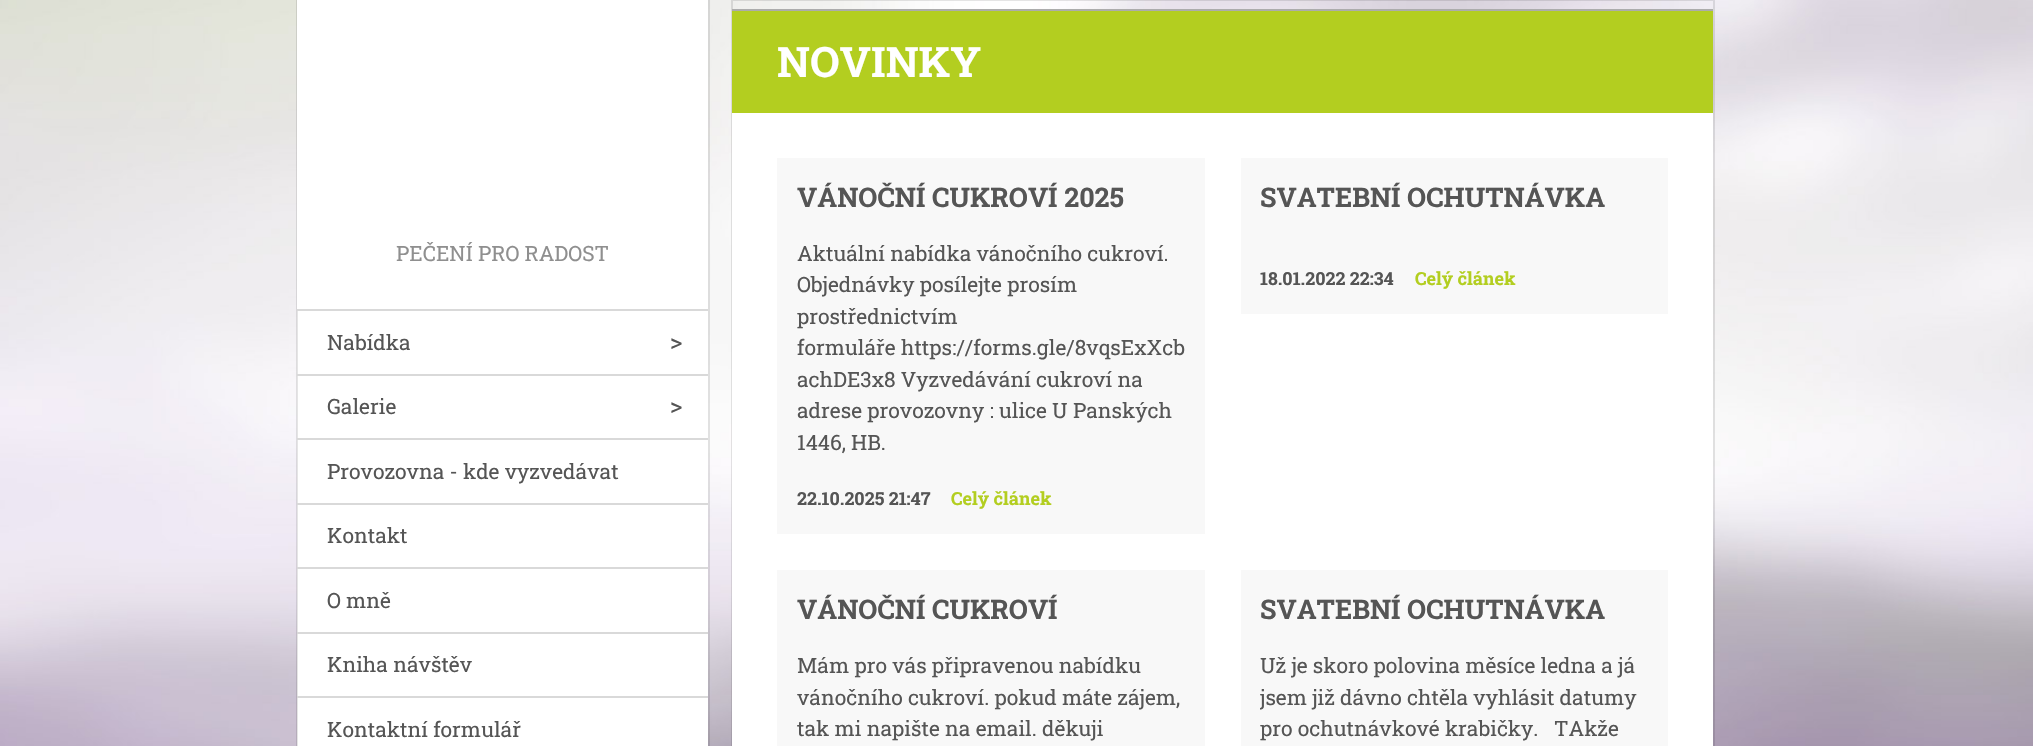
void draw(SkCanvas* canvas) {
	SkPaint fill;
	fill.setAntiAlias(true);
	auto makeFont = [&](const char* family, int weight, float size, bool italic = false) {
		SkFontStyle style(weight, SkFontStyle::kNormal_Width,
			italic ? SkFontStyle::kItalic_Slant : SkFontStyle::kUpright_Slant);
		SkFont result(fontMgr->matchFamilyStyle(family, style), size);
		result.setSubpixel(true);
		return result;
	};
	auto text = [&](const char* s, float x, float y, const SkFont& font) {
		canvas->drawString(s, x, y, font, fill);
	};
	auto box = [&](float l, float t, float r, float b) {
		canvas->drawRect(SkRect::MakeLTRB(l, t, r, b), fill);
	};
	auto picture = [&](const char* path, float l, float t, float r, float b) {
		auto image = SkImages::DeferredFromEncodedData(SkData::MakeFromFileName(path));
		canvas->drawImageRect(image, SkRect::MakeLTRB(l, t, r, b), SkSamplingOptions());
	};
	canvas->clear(0xFFFFFFFF);
	picture("image0.png", 0, 0, 2033, 746);
	fill.setColor(0xFFFFFFFF);
	box(297, 311, 708, 746);
	fill.setStyle(SkPaint::kStroke_Style);
	fill.setStrokeWidth(2);
	fill.setColor(0x1A000000);
	canvas->drawRect(SkRect::MakeLTRB(297, 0, 709, 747), fill);
	fill.setStyle(SkPaint::kFill_Style);
	fill.setColor(0xFFFFFFFF);
	box(297, 0, 708, 309);
	fill.setColor(0xFFD9D9D9);
	box(297, 309, 708, 311);
	box(297, 374, 708, 376);
	box(297, 438, 708, 440);
	box(297, 503, 708, 505);
	box(297, 567, 708, 569);
	box(297, 632, 708, 634);
	box(297, 696, 708, 698);
	fill.setStyle(SkPaint::kStroke_Style);
	fill.setColor(0x1A000000);
	canvas->drawRect(SkRect::MakeLTRB(732, 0, 1714, 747), fill);
	fill.setStyle(SkPaint::kFill_Style);
	fill.setColor(0xFFACACAC);
	box(732, 9, 1713, 11);
	fill.setColor(0xFFB3CE20);
	box(732, 11, 1713, 113);
	fill.setColor(0xFFFFFFFF);
	box(732, 113, 1713, 746);
	fill.setColor(0xFFF8F8F8);
	box(777, 158, 1205, 534);
	box(1241, 158, 1668, 314);
	box(777, 570, 1205, 746);
	box(1241, 570, 1668, 746);
	auto font1 = makeFont("Roboto Slab", 400, 21);
	fill.setColor(0xFF8F8F8F);
	text("PEČENÍ PRO RADOST", 396, 261, font1);
	fill.setColor(0xFF555555);
	text("Nabídka", 327, 350, font1);
	auto font2 = makeFont("Roboto Slab", 400, 24);
	text(">", 670, 350, font2);
	text("Galerie", 327, 414, font1);
	text(">", 670, 414, font2);
	text("Provozovna - kde vyzvedávat", 327, 479, font1);
	text("Kontakt", 327, 543, font1);
	text("O mně", 327, 608, font1);
	text("Kniha návštěv", 327, 672, font1);
	text("Kontaktní formulář", 327, 737, font1);
	auto font3 = makeFont("Roboto Slab", 700, 42);
	fill.setColor(0xFFFFFFFF);
	text("NOVINKY", 777, 77, font3);
	auto font4 = makeFont("Roboto Slab", 700, 27);
	fill.setColor(0xFF555555);
	text("VÁNOČNÍ CUKROVÍ 2025", 797, 207, font4);
	text("Aktuální nabídka vánočního cukroví.", 797, 261, font1);
	text("Objednávky posílejte prosím", 797, 292, font1);
	text("prostřednictvím", 797, 324, font1);
	text("formuláře https://forms.gle/8vqsExXcb", 797, 355, font1);
	text("achDE3x8 Vyzvedávání cukroví na", 797, 387, font1);
	text("adrese provozovny : ulice U Panských", 797, 418, font1);
	text("1446, HB.", 797, 450, font1);
	auto font5 = makeFont("Roboto Slab", 700, 18);
	text("22.10.2025 21:47", 797, 505, font5);
	fill.setColor(0xFFB3CE20);
	text("Celý článek", 951, 505, font5);
	fill.setColor(0xFF555555);
	text("SVATEBNÍ OCHUTNÁVKA", 1260, 207, font4);
	text("18.01.2022 22:34", 1260, 285, font5);
	fill.setColor(0xFFB3CE20);
	text("Celý článek", 1415, 285, font5);
	fill.setColor(0xFF555555);
	text("VÁNOČNÍ CUKROVÍ", 797, 619, font4);
	text("Mám pro vás připravenou nabídku", 797, 673, font1);
	text("vánočního cukroví. pokud máte zájem,", 797, 705, font1);
	text("tak mi napište na email. děkuji", 797, 736, font1);
	text("SVATEBNÍ OCHUTNÁVKA", 1260, 619, font4);
	text("Už je skoro polovina měsíce ledna a já", 1260, 673, font1);
	canvas->save();
	canvas->clipRect(SkRect::MakeLTRB(1260, 650, 1649, 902));
	text("jsem již dávno chtěla vyhlásit datumy", 1260, 705, font1);
	canvas->restore();
	text("pro ochutnávkové krabičky.", 1260, 736, font1);
	text("TAkže", 1554, 736, font1);
}
